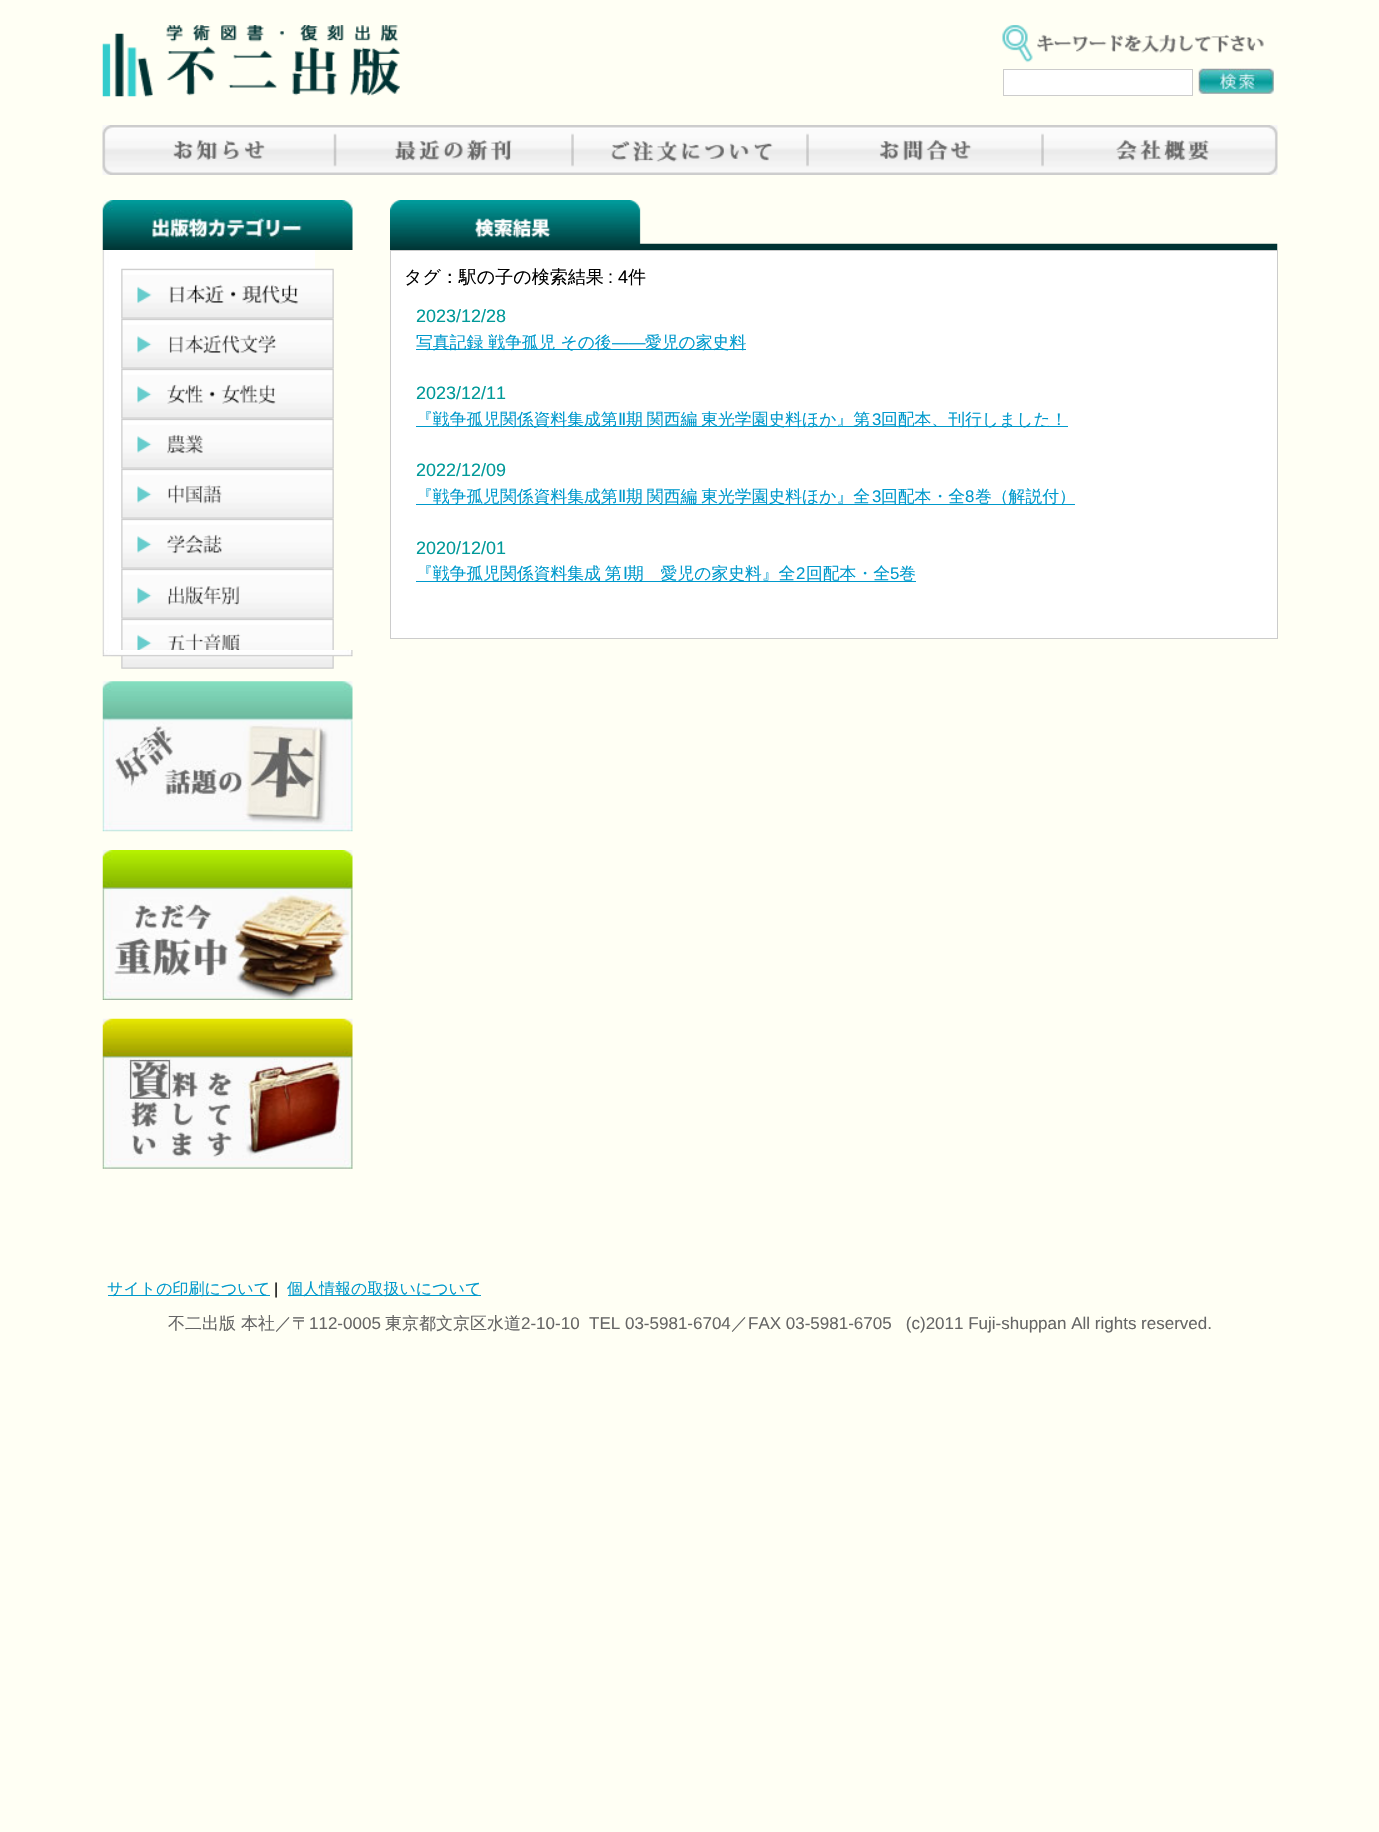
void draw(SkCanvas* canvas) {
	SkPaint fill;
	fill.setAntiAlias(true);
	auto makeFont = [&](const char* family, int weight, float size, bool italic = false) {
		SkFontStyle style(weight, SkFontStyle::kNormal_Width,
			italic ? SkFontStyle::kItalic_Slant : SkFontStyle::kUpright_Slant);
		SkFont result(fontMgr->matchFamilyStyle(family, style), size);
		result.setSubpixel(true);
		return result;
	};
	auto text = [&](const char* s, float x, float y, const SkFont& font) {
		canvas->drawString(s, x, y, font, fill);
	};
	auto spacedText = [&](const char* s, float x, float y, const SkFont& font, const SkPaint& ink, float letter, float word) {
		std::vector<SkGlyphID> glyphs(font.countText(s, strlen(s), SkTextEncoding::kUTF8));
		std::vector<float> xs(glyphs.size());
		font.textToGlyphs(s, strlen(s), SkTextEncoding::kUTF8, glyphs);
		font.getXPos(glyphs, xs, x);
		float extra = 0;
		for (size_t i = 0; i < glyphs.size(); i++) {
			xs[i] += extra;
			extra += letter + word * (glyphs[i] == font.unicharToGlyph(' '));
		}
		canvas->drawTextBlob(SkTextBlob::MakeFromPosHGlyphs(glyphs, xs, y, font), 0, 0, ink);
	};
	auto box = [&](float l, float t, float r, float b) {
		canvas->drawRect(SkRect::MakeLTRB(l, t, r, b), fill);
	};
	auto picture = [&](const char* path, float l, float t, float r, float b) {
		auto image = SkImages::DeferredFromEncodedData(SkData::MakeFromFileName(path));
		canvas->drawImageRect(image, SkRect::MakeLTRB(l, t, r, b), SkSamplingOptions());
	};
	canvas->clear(0xFFFFFFF4);
	picture("image0.png", 102, 25, 400, 97);
	picture("image1.png", 1002, 25, 1264, 63);
	fill.setColor(0xFFFFFFFF);
	canvas->drawRect(SkRect::MakeLTRB(1003.5f, 69.5f, 1192.5f, 95.5f), fill);
	fill.setStyle(SkPaint::kStroke_Style);
	fill.setStrokeWidth(1);
	fill.setColor(0xFFCCCCCC);
	canvas->drawRect(SkRect::MakeLTRB(1003.5f, 69.5f, 1192.5f, 95.5f), fill);
	picture("image2.png", 1198, 68, 1274, 94);
	picture("image3.png", 102, 125, 1278, 175);
	picture("image4.png", 102, 200, 353, 250);
	picture("image5.png", 102, 250, 315, 650);
	picture("image6.png", 121, 268, 334, 319);
	picture("image7.png", 121, 319, 334, 369);
	picture("image8.png", 121, 369, 334, 419);
	picture("image9.png", 121, 419, 334, 469);
	picture("image10.png", 121, 469, 334, 519);
	picture("image11.png", 121, 519, 334, 569);
	picture("image12.png", 121, 569, 334, 619);
	picture("image13.png", 121, 619, 334, 669);
	picture("image14.png", 102, 650, 353, 657);
	picture("image15.png", 102, 681, 353, 832);
	picture("image16.png", 102, 850, 353, 1000);
	picture("image17.png", 102, 1018, 353, 1169);
	picture("image18.png", 390, 200, 1278, 250);
	fill.setStyle(SkPaint::kFill_Style);
	fill.setColor(0xFFFFFFFF);
	canvas->drawRect(SkRect::MakeLTRB(390.5f, 250.5f, 1277.5f, 638.5f), fill);
	fill.setStyle(SkPaint::kStroke_Style);
	fill.setColor(0xFFCCCCCC);
	canvas->drawRect(SkRect::MakeLTRB(390.5f, 250.5f, 1277.5f, 638.5f), fill);
	fill.setStyle(SkPaint::kFill_Style);
	fill.setColor(0xFF0099CC);
	box(416, 349, 746, 350);
	box(416, 426, 1068, 427);
	box(416, 504, 1075, 505);
	box(416, 581, 916, 582);
	box(108, 1295, 270, 1296);
	box(288, 1295, 481, 1296);
	auto font1 = makeFont("WenQuanYi Zen Hei", 500, 18);
	fill.setColor(0xFF000000);
	text("タグ：駅の子の検索結果", 404, 283, font1);
	auto font2 = makeFont("Liberation Sans", 400, 18);
	text(": 4", 608, 283, font2);
	text("件", 628, 283, font1);
	fill.setColor(0xFF009999);
	text("2023/12/28", 416, 322, font2);
	auto font3 = makeFont("WenQuanYi Zen Hei", 500, 16.8f);
	fill.setColor(0xFF0099CC);
	text("写真記録 戦争孤児 その後", 416, 348, font3);
	auto font4 = makeFont("Liberation Sans", 400, 16.8f);
	text("――", 612, 348, font4);
	text("愛児の家史料", 645, 348, font3);
	fill.setColor(0xFF009999);
	text("2023/12/11", 416, 399, font2);
	fill.setColor(0xFF0099CC);
	text("『戦争孤児関係資料集成第", 416, 425, font3);
	auto font5 = makeFont("DejaVu Sans", 400, 16.8f);
	text("Ⅱ", 618, 425, font5);
	spacedText("期 関西編 東光学園史料ほか』第", 626, 425, font3, fill, 0, -1);
	text("3", 872, 425, font4);
	text("回配本、刊行しました！", 881, 425, font3);
	fill.setColor(0xFF009999);
	text("2022/12/09", 416, 476, font2);
	fill.setColor(0xFF0099CC);
	text("『戦争孤児関係資料集成第", 416, 502, font3);
	text("Ⅱ", 618, 502, font5);
	spacedText("期 関西編 東光学園史料ほか』全", 626, 502, font3, fill, 0, -1);
	text("3", 872, 502, font4);
	text("回配本・全", 881, 502, font3);
	text("8", 965, 502, font4);
	text("巻（解説付）", 975, 502, font3);
	fill.setColor(0xFF009999);
	text("2020/12/01", 416, 554, font2);
	fill.setColor(0xFF0099CC);
	spacedText("『戦争孤児関係資料集成 第", 416, 579, font3, fill, 0, -1);
	text("Ⅰ", 623, 579, font5);
	text("期　愛児の家史料』全", 627, 579, font3);
	text("2", 796, 579, font4);
	text("回配本・全", 806, 579, font3);
	text("5", 890, 579, font4);
	text("巻", 899, 579, font3);
	auto font6 = makeFont("WenQuanYi Zen Hei", 500, 16);
	text("サイトの印刷について", 107, 1294, font6);
	auto font7 = makeFont("Liberation Sans", 400, 16);
	fill.setColor(0xFF000000);
	text("|", 274, 1294, font7);
	fill.setColor(0xFF0099CC);
	text("個人情報の取扱いについて", 287, 1294, font6);
	auto font8 = makeFont("WenQuanYi Zen Hei", 500, 17);
	fill.setColor(0xFF666666);
	text("不二出版", 168, 1329, font8);
	text("本社／〒", 241, 1329, font8);
	auto font9 = makeFont("Liberation Sans", 400, 17);
	text("112-0005", 309, 1329, font9);
	text("東京都文京区水道", 385, 1329, font8);
	text("2-10-10  TEL 03-5981-6704", 521, 1329, font9);
	text("／", 731, 1329, font8);
	text("FAX 03-5981-6705   (c)2011 Fuji-shuppan All rights reserved.", 748, 1329, font9);
}
